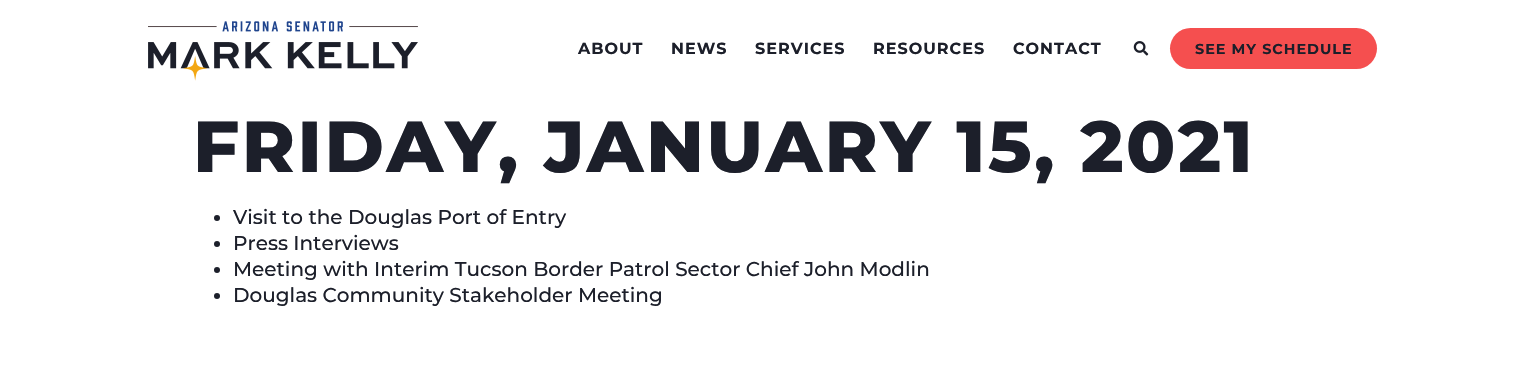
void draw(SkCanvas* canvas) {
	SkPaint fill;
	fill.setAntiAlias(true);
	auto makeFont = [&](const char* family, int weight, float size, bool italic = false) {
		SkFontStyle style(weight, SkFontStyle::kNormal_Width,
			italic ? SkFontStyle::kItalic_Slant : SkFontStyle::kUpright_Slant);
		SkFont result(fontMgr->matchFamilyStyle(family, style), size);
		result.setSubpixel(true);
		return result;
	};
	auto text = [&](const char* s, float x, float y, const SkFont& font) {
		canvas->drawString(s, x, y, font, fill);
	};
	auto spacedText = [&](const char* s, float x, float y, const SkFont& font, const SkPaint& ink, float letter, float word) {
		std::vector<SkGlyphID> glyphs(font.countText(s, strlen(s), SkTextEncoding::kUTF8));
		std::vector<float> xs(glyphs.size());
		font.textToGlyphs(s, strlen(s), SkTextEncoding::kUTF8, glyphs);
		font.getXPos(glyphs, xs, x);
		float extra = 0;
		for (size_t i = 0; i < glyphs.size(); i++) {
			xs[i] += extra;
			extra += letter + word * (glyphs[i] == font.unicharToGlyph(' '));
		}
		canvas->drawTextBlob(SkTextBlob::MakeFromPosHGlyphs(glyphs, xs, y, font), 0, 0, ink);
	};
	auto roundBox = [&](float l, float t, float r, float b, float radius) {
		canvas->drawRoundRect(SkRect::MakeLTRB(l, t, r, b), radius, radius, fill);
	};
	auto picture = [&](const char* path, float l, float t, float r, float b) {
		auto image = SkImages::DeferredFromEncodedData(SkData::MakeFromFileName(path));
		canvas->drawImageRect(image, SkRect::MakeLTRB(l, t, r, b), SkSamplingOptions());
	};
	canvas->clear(0xFFFFFFFF);
	picture("image0.png", 148, 21, 418, 81);
	picture("image1.png", 1133, 41, 1149, 56);
	fill.setColor(0xFFF54F4F);
	roundBox(1170, 28, 1377, 69, 20.5f);
	fill.setColor(0xFF1C1F2A);
	canvas->drawCircle(217, 218, 3, fill);
	canvas->drawCircle(217, 244, 3, fill);
	canvas->drawCircle(217, 270, 3, fill);
	canvas->drawCircle(217, 296, 3, fill);
	auto font1 = makeFont("Montserrat", 700, 16);
	spacedText("ABOUT", 578, 54, font1, fill, 1, 0);
	spacedText("NEWS", 671, 54, font1, fill, 1, 0);
	spacedText("SERVICES", 755, 54, font1, fill, 1, 0);
	spacedText("RESOURCES", 873, 54, font1, fill, 1, 0);
	spacedText("CONTACT", 1013, 54, font1, fill, 1, 0);
	auto font2 = makeFont("Montserrat", 700, 14.4f);
	spacedText("SEE MY SCHEDULE", 1195, 54, font2, fill, 1, 0);
	auto font3 = makeFont("Montserrat", 800, 72);
	spacedText("FRIDAY, JANUARY 15, 2021", 193, 172, font3, fill, 2.5f, 0);
	auto font4 = makeFont("Montserrat", 500, 20);
	text("Visit to the Douglas Port of Entry", 233, 224, font4);
	text("Press Interviews", 233, 250, font4);
	text("Meeting with Interim Tucson Border Patrol Sector Chief John Modlin", 233, 276, font4);
	text("Douglas Community Stakeholder Meeting", 233, 302, font4);
}
